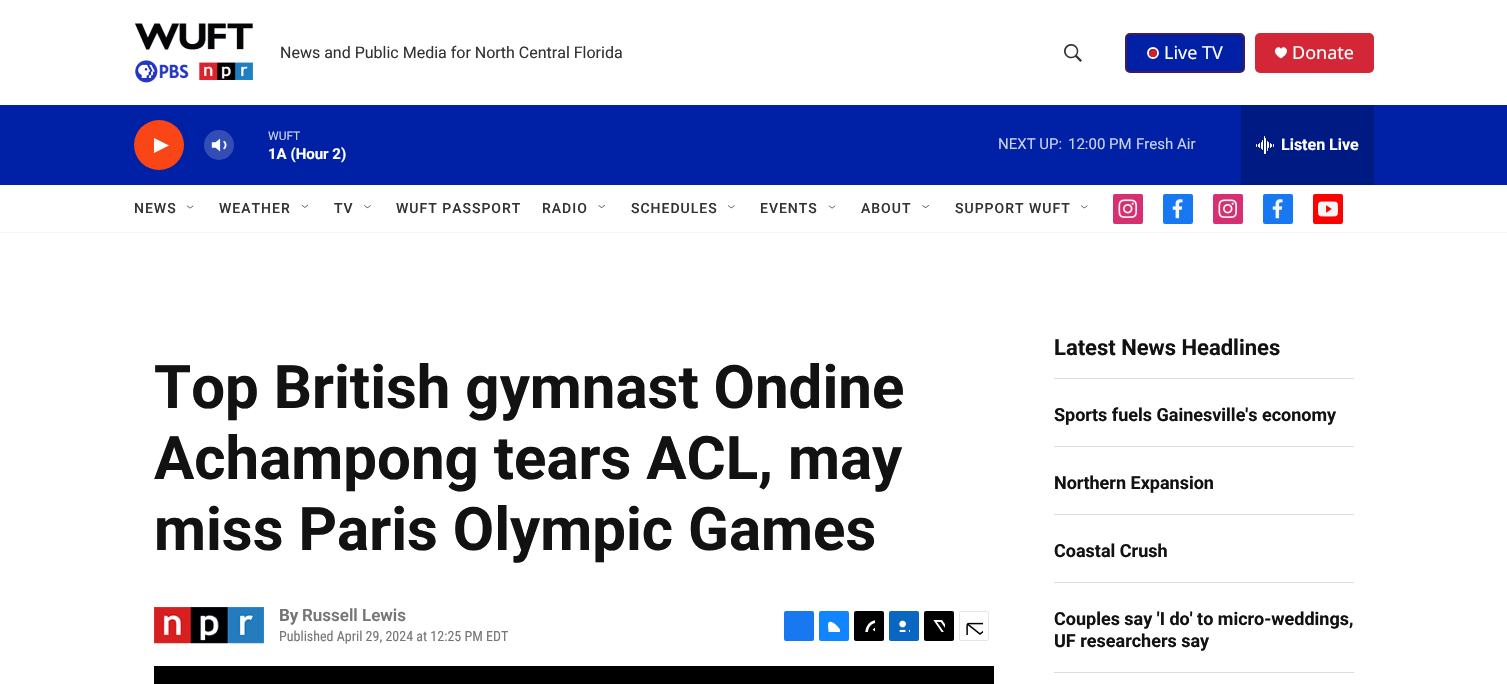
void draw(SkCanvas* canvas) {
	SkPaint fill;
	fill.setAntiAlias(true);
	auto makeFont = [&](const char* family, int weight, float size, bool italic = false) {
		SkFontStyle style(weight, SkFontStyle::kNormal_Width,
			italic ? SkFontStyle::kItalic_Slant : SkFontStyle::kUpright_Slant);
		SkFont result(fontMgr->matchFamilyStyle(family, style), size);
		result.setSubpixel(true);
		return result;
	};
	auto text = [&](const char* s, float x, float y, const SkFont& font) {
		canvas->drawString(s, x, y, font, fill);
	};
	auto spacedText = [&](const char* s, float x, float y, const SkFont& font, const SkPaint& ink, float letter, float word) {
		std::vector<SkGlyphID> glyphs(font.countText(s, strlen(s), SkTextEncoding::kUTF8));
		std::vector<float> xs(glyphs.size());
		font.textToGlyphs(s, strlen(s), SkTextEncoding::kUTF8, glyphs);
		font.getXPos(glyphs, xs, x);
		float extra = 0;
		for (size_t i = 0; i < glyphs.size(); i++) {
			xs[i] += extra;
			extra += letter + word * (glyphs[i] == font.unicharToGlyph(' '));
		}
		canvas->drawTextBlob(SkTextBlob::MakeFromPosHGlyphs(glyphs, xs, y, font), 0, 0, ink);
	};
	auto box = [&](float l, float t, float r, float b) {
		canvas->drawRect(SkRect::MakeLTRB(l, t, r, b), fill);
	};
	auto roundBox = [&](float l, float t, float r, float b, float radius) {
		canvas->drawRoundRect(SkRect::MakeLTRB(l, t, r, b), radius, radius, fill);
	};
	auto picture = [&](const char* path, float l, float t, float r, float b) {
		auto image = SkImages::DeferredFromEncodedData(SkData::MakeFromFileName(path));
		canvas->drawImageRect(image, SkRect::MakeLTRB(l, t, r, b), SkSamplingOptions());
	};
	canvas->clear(0xFFFFFFFF);
	fill.setColor(0xFFF5F5F5);
	box(0, 232, 1507, 233);
	picture("image0.png", 135, 23, 253, 83);
	picture("image1.png", 1064, 44, 1082, 62);
	fill.setColor(0xFF0021A5);
	canvas->drawRoundRect(SkRect::MakeLTRB(1126, 34, 1244, 72), 4, 4, fill);
	fill.setStyle(SkPaint::kStroke_Style);
	fill.setStrokeWidth(2);
	fill.setColor(0xFF411C58);
	canvas->drawRoundRect(SkRect::MakeLTRB(1126, 34, 1244, 72), 4, 4, fill);
	fill.setColor(0xFFFFFFFF);
	canvas->drawCircle(1153, 53, 5, fill);
	fill.setStyle(SkPaint::kFill_Style);
	fill.setColor(0xFFD62021);
	canvas->drawPath(SkPathBuilder().moveTo(1154, 49).cubicTo(1160, 50.5f, 1155.5f, 60, 1150.5f, 56).cubicTo(1150, 55.5f, 1149, 54.5f, 1149, 54).cubicTo(1149, 51.5f, 1152, 49.5f, 1154, 49).close().detach(), fill);
	fill.setColor(0xFFD32737);
	roundBox(1255, 33, 1374, 73, 5);
	fill.setColor(0xFFFFFFFF);
	canvas->drawPath(SkPathBuilder().moveTo(1281, 49).cubicTo(1279, 44, 1268.5f, 51, 1281, 58.5f).cubicTo(1293.5f, 51, 1283, 44, 1281, 49).close().detach(), fill);
	fill.setColor(0xFF0021A5);
	box(0, 105, 1507, 185);
	fill.setColor(0xFFFA4616);
	canvas->drawCircle(159, 145, 25, fill);
	fill.setColor(0xFFFFFFFF);
	canvas->drawPath(SkPathBuilder().moveTo(154, 138).lineTo(169, 145.5f).lineTo(154, 153).close().detach(), fill);
	picture("image2.png", 211, 138, 227, 152);
	fill.setColor(0x33FFFFFF);
	canvas->drawCircle(219, 145, 15, fill);
	fill.setColor(0xFF001A84);
	box(1241, 105, 1374, 185);
	picture("image3.png", 1256, 136, 1274, 154);
	picture("image4.png", 187, 205, 194, 209);
	picture("image5.png", 301, 204, 308, 208);
	picture("image6.png", 364, 205, 371, 209);
	picture("image7.png", 598, 205, 605, 208);
	picture("image8.png", 728, 205, 735, 209);
	picture("image9.png", 828, 205, 836, 209);
	picture("image10.png", 922, 205, 929, 208);
	picture("image11.png", 1081, 205, 1088, 209);
	fill.setColor(0xFFD63072);
	roundBox(1113, 194, 1143, 224, 2);
	picture("image12.png", 1118, 199, 1137, 218);
	fill.setColor(0xFF1778F2);
	roundBox(1163, 194, 1193, 224, 2);
	picture("image13.png", 1172, 199, 1183, 219);
	fill.setColor(0xFFD63072);
	roundBox(1213, 194, 1243, 224, 2);
	picture("image12.png", 1218, 199, 1237, 218);
	fill.setColor(0xFF1778F2);
	roundBox(1263, 194, 1293, 224, 2);
	picture("image13.png", 1272, 199, 1283, 219);
	fill.setColor(0xFFFF0000);
	roundBox(1313, 194, 1343, 224, 2);
	picture("image14.png", 1318, 201, 1338, 217);
	picture("image15.png", 154, 607, 264, 644);
	fill.setColor(0xFF1778F2);
	roundBox(784, 611, 814, 641, 2);
	fill.setColor(0xFF1185FE);
	roundBox(819, 611, 849, 641, 2);
	picture("image16.png", 828, 621, 840, 632);
	fill.setColor(0xFF000000);
	roundBox(854, 611, 884, 641, 2);
	picture("image17.png", 865, 620, 875, 632);
	fill.setColor(0xFF0A66C1);
	roundBox(889, 611, 919, 641, 2);
	picture("image18.png", 899, 620, 910, 632);
	fill.setColor(0xFF000000);
	roundBox(924, 611, 954, 641, 2);
	picture("image19.png", 933, 620, 945, 632);
	fill.setStyle(SkPaint::kStroke_Style);
	fill.setStrokeWidth(1);
	fill.setColor(0xFFE6E6E6);
	canvas->drawRoundRect(SkRect::MakeLTRB(959.5f, 611.5f, 988.5f, 640.5f), 1.5f, 1.5f, fill);
	picture("image20.png", 966, 622, 983, 635);
	fill.setStyle(SkPaint::kFill_Style);
	fill.setColor(0xFF000000);
	box(154, 666, 994, 684);
	fill.setColor(0xFFDCDCDC);
	box(1054, 378, 1354, 379);
	box(1054, 446, 1354, 447);
	box(1054, 514, 1354, 515);
	box(1054, 582, 1354, 583);
	box(1054, 672, 1354, 673);
	auto font1 = makeFont("Roboto", 400, 16);
	fill.setColor(0xFF333333);
	text("News and Public Media for North Central Florida", 280, 58, font1);
	auto font2 = makeFont("Noto Sans", 400, 18);
	fill.setColor(0xFFFFFFFF);
	text("Live TV", 1164, 59, font2);
	text("Donate", 1292, 59, font2);
	auto font3 = makeFont("Roboto", 400, 12);
	fill.setColor(0xFFCCD3ED);
	text("WUFT", 268, 140, font3);
	auto font4 = makeFont("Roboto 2", 700, 15);
	fill.setColor(0xFFFFFFFF);
	text("1A (Hour 2)", 268, 159, font4);
	auto font5 = makeFont("Roboto", 400, 15);
	fill.setColor(0xFFCCD3ED);
	text("NEXT UP:", 998, 149, font5);
	text("12:00 PM", 1068, 149, font5);
	text("Fresh Air", 1136, 149, font5);
	auto font6 = makeFont("Roboto 2", 700, 16);
	fill.setColor(0xFFFFFFFF);
	text("Listen Live", 1281, 150, font6);
	auto font7 = makeFont("Roboto", 500, 14);
	fill.setColor(0xFF333333);
	spacedText("NEWS", 134, 213, font7, fill, 1, 0);
	spacedText("WEATHER", 219, 213, font7, fill, 1, 0);
	spacedText("TV", 334, 213, font7, fill, 1, 0);
	spacedText("WUFT PASSPORT", 396, 213, font7, fill, 1, 0);
	spacedText("RADIO", 542, 213, font7, fill, 1, 0);
	spacedText("SCHEDULES", 631, 213, font7, fill, 1, 0);
	spacedText("EVENTS", 760, 213, font7, fill, 1, 0);
	spacedText("ABOUT", 861, 213, font7, fill, 1, 0);
	spacedText("SUPPORT WUFT", 955, 213, font7, fill, 1, 0);
	auto font8 = makeFont("Roboto", 700, 60);
	fill.setColor(0xFF121212);
	text("Top British gymnast Ondine", 154, 408, font8);
	text("Achampong tears ACL, may", 154, 479, font8);
	text("miss Paris Olympic Games", 154, 550, font8);
	auto font9 = makeFont("Roboto", 700, 17);
	fill.setColor(0xFF767676);
	text("By", 279, 621, font9);
	auto font10 = makeFont("Roboto", 600, 17);
	text("Russell Lewis", 302, 621, font10);
	auto font11 = makeFont("Roboto Condensed", 400, 14);
	text("Published April 29, 2024 at 12:25 PM EDT", 279, 641, font11);
	auto font12 = makeFont("Roboto", 700, 22);
	fill.setColor(0xFF121212);
	text("Latest News Headlines", 1054, 355, font12);
	auto font13 = makeFont("Roboto", 700, 18);
	text("Sports fuels Gainesville's economy", 1054, 421, font13);
	text("Northern Expansion", 1054, 489, font13);
	text("Coastal Crush", 1054, 557, font13);
	text("Couples say 'I do' to micro-weddings,", 1054, 625, font13);
	text("UF researchers say", 1054, 647, font13);
}
